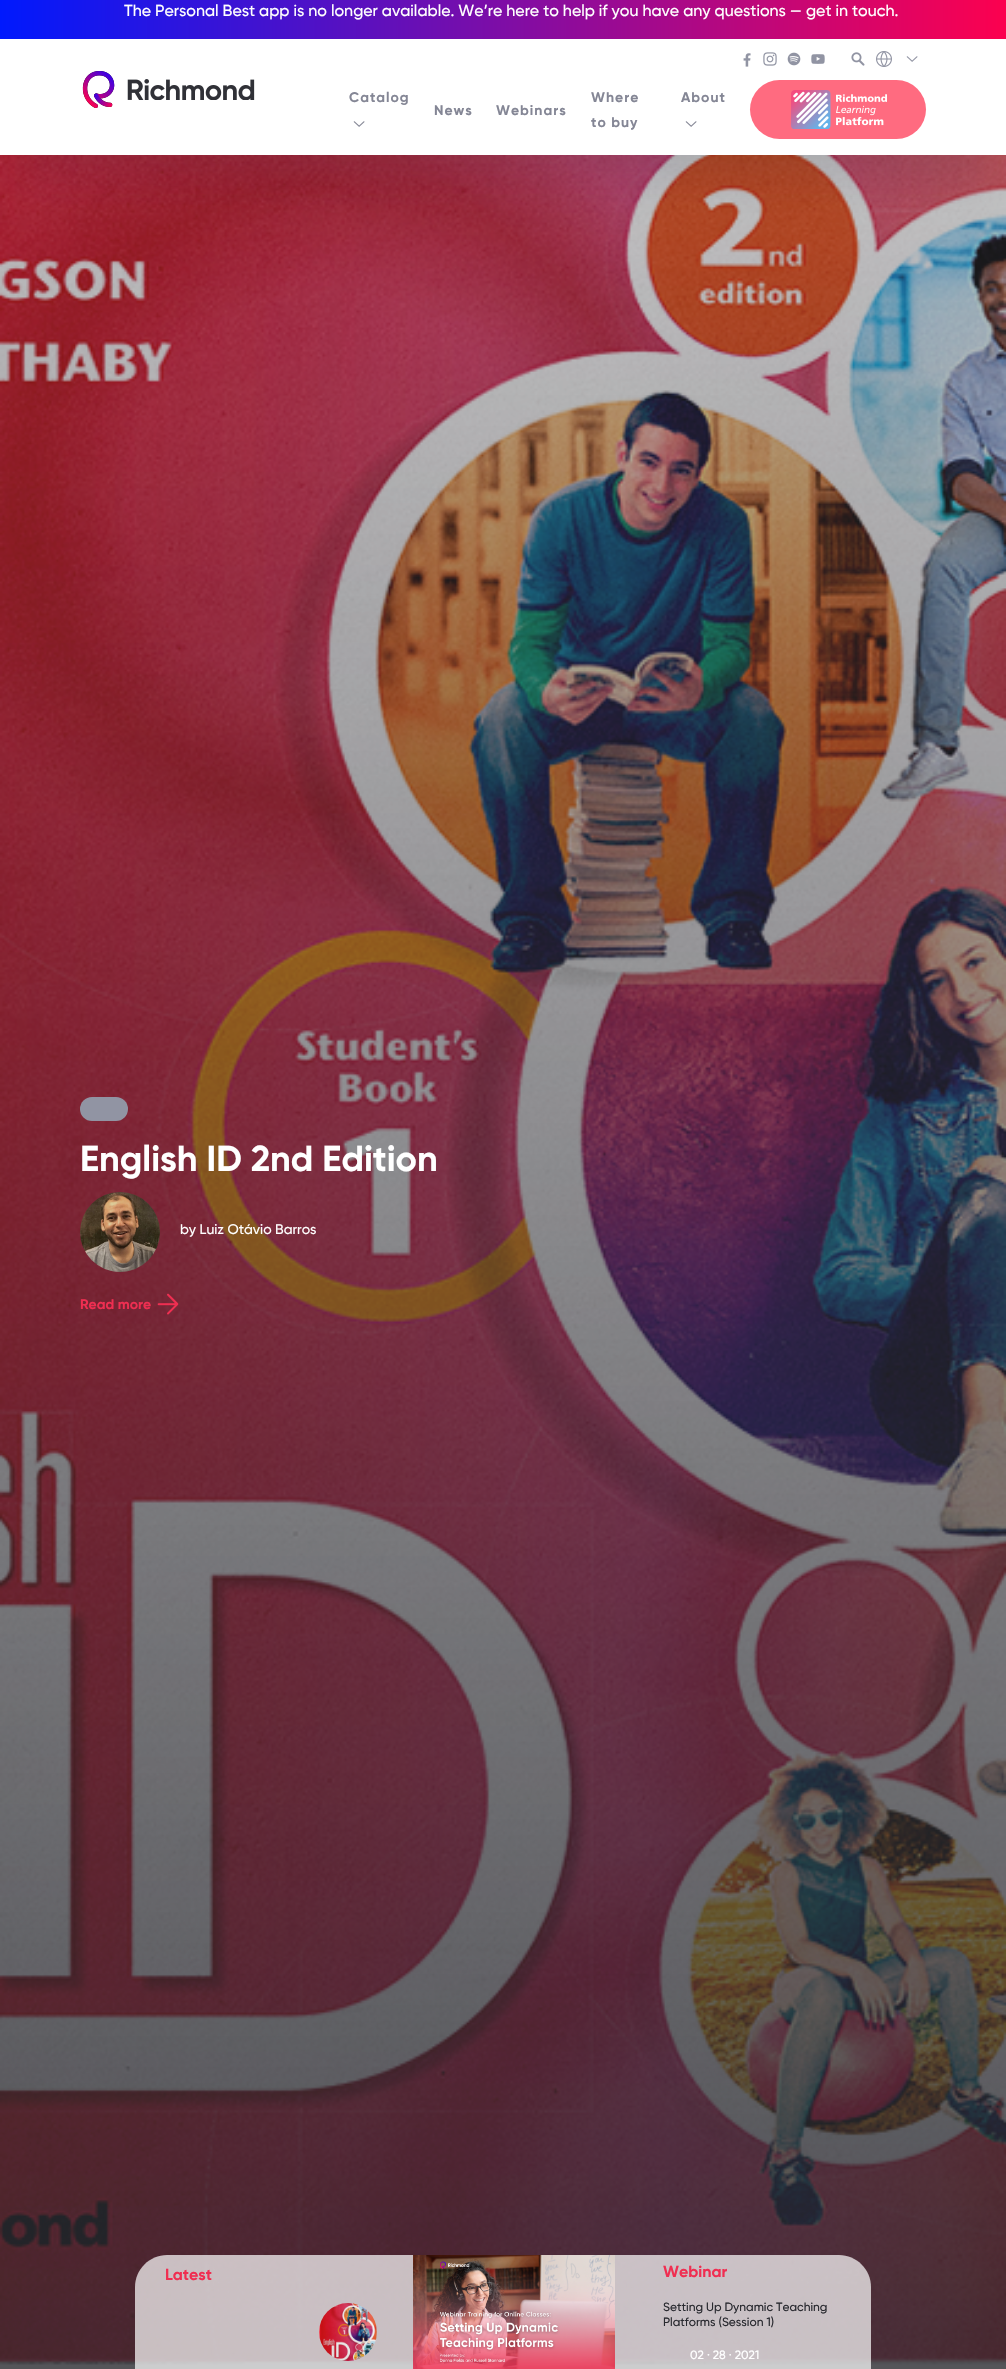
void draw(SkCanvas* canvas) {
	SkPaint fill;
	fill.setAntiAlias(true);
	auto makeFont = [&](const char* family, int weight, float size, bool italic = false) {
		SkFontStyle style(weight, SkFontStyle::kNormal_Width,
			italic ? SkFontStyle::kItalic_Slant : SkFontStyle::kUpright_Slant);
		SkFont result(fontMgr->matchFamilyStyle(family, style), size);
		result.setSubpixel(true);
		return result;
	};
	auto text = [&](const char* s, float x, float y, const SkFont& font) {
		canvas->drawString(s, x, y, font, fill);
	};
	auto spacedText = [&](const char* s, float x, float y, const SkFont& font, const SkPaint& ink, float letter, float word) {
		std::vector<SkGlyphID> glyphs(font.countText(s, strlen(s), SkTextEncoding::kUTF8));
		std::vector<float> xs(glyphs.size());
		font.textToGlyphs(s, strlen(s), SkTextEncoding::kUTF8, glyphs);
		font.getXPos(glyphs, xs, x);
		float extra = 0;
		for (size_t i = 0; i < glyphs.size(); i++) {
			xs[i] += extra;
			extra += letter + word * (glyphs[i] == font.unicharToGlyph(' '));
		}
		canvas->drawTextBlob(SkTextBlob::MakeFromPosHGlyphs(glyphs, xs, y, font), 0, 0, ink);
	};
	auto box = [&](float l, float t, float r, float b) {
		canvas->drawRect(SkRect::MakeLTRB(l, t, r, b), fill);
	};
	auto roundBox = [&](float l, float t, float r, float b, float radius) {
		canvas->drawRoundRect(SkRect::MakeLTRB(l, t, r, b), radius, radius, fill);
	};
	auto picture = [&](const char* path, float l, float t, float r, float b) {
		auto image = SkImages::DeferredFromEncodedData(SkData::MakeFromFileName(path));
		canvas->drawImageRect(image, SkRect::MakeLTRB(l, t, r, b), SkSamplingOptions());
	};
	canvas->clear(0xFFFFFFFF);
	picture("image11.png", 0, 155, 1006, 2365);
	{
		const SkColor colors[] = {0xCC292A30, 0x33292A30};
		const float stops[] = {0, 1};
		const SkPoint ends[] = {{503, 2369}, {503, 0}};
		fill.setShader(SkGradientShader::MakeLinear(ends, colors, stops, 2, SkTileMode::kClamp));
		fill.setAlpha(255);
	}
	box(0, 155, 1006, 2369);
	fill.setShader(nullptr);
	fill.setColor(0x2622253B);
	fill.setMaskFilter(SkMaskFilter::MakeBlur(kNormal_SkBlurStyle, 25));
	canvas->drawRect(SkRect::MakeLTRB(20, 60, 986, 175), fill);
	fill.setMaskFilter(nullptr);
	fill.setColor(0xFFFFFFFF);
	box(0, 39, 1006, 155);
	{
		const SkColor colors[] = {0xFF0019FD, 0xFFFC014F};
		const float stops[] = {0, 1};
		const SkPoint ends[] = {{0, 4}, {1006, 4}};
		fill.setShader(SkGradientShader::MakeLinear(ends, colors, stops, 2, SkTileMode::kClamp));
		fill.setAlpha(255);
	}
	box(0, 0, 1006, 39);
	picture("image0.png", 743, 53, 751, 67);
	picture("image1.png", 763, 52, 777, 66);
	picture("image2.png", 787, 52, 801, 66);
	picture("image3.png", 811, 54, 825, 64);
	picture("image4.png", 851, 52, 865, 66);
	picture("image5.png", 876, 51, 892, 67);
	picture("image6.png", 906, 56, 918, 62);
	picture("image7.png", 82, 71, 115, 108);
	picture("image8.png", 127, 79, 255, 100);
	picture("image9.png", 353, 121, 365, 127);
	picture("image9.png", 685, 121, 697, 127);
	fill.setShader(nullptr);
	fill.setColor(0xFFFF6B80);
	roundBox(750, 80, 926, 139, 29.5f);
	picture("image10.png", 791, 90, 887, 129);
	fill.setColor(0xFF9194A3);
	roundBox(80, 1097, 128, 1121, 12);
	picture("image12.png", 80, 1192, 160, 1272);
	picture("image13.png", 157, 1293, 179, 1315);
	fill.setColor(0xB3FFFFFF);
	canvas->drawPath(SkPathBuilder().moveTo(167, 2255).lineTo(839, 2255).cubicTo(856.5f, 2255, 871, 2269.5f, 871, 2287).lineTo(871, 2369).lineTo(135, 2369).lineTo(135, 2287).cubicTo(135, 2269.5f, 149.5f, 2255, 167, 2255).close().detach(), fill);
	picture("image14.png", 319, 2303, 377, 2361);
	picture("image15.png", 413, 2255, 615, 2369);
	auto font1 = makeFont("Gilroy", 500, 16);
	fill.setColor(0xFFFFFFFF);
	text("The Personal Best app is no longer available. We’re here to help if you have any questions — get in touch.", 124, 16, font1);
	auto font2 = makeFont("Gilroy", 700, 14);
	fill.setColor(0xFF848695);
	spacedText("Catalog", 349, 102, font2, fill, 1, 0);
	spacedText("Where", 591, 102, font2, fill, 1, 0);
	spacedText("to buy", 591, 127, font2, fill, 1, 0);
	spacedText("About", 681, 102, font2, fill, 1, 0);
	spacedText("News", 434, 115, font2, fill, 1, 0);
	spacedText("Webinars", 496, 115, font2, fill, 1, 0);
	auto font3 = makeFont("Gilroy", 700, 36);
	fill.setColor(0xFFFFFFFF);
	text("English ID 2nd Edition", 80, 1171, font3);
	auto font4 = makeFont("Gilroy", 500, 14);
	text("by Luiz Otávio Barros", 180, 1234, font4);
	fill.setColor(0xFFF02E51);
	text("Read more", 80, 1309, font2);
	auto font5 = makeFont("Gilroy", 700, 16);
	text("Latest", 165, 2280, font5);
	text("Webinar", 663, 2277, font5);
	auto font6 = makeFont("Gilroy", 500, 12);
	fill.setColor(0xFF292A30);
	text("Setting Up Dynamic Teaching", 663, 2311, font6);
	text("Platforms (Session 1)", 663, 2326, font6);
	fill.setColor(0xFFFFFFFF);
	text("02 · 28 · 2021", 690, 2359, font6);
}
